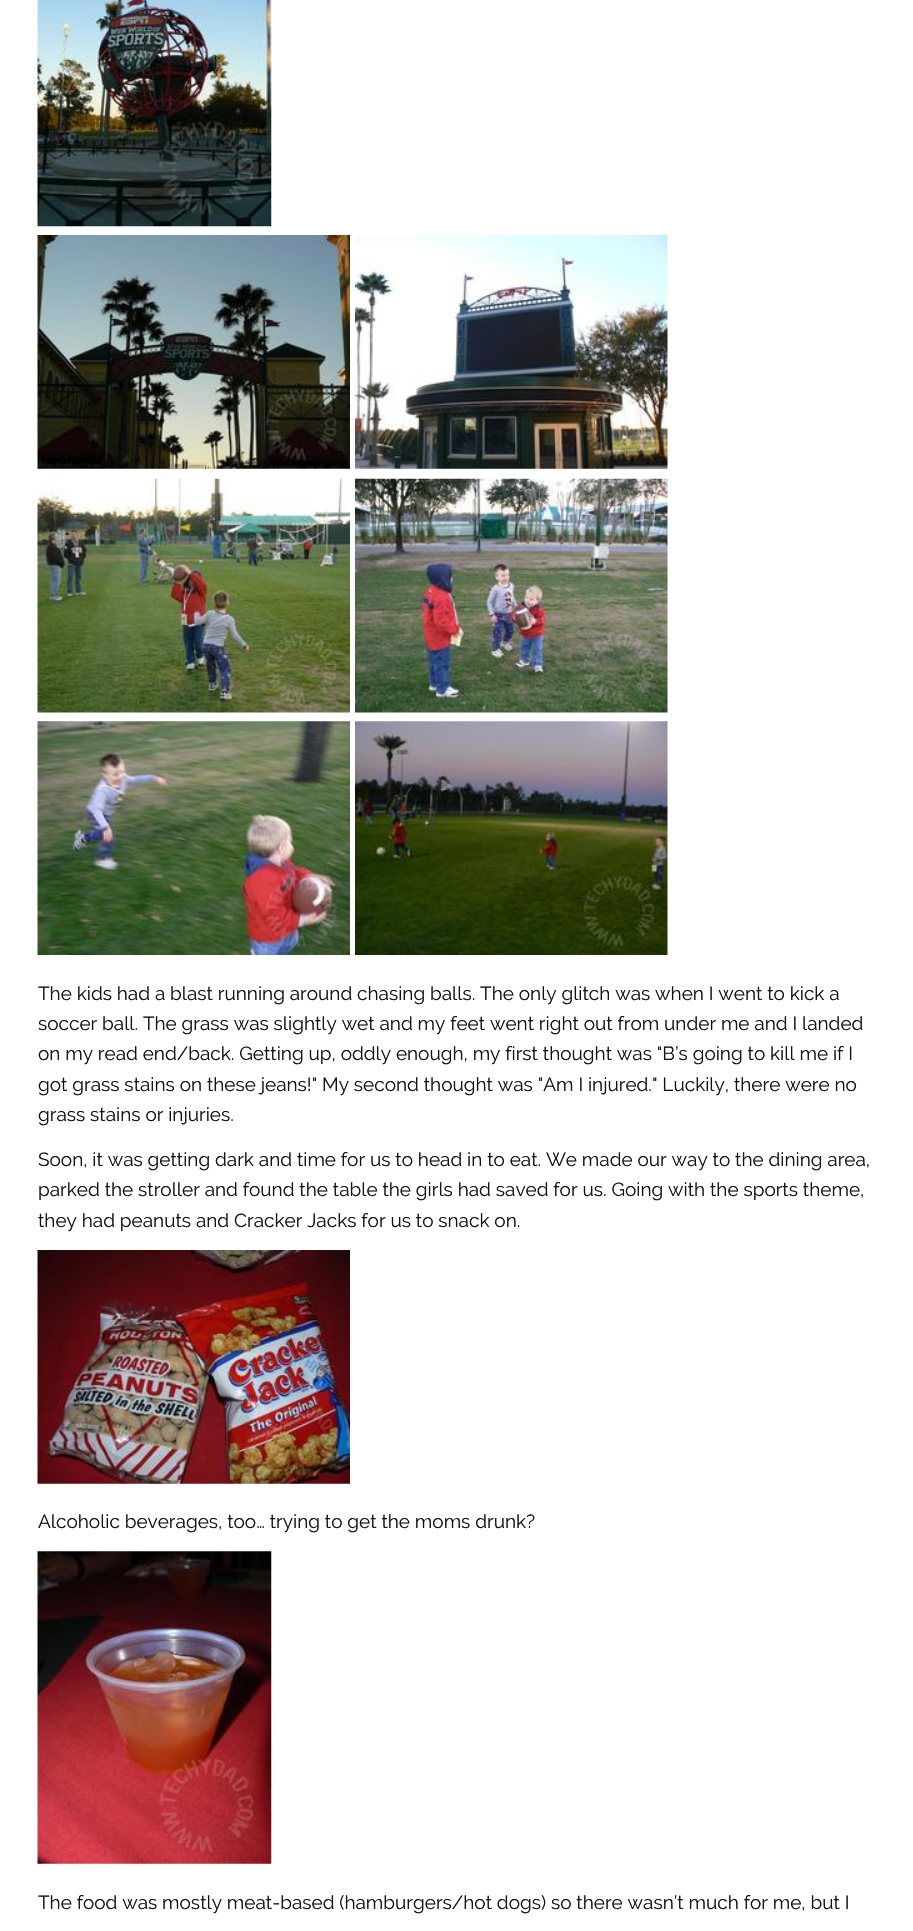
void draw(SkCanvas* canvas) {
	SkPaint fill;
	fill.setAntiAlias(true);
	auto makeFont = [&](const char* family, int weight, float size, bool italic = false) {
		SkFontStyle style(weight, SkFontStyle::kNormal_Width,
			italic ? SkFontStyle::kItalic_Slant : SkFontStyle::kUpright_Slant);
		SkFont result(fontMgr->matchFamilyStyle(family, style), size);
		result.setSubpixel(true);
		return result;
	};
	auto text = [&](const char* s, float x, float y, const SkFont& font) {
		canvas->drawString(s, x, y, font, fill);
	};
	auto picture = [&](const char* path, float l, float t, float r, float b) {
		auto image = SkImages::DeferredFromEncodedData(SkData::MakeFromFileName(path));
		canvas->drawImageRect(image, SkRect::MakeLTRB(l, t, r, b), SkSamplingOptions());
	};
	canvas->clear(0xFFFFFFFF);
	picture("image0.png", 37, 0, 272, 227);
	picture("image1.png", 37, 235, 350, 469);
	picture("image2.png", 355, 235, 668, 469);
	picture("image3.png", 37, 478, 350, 713);
	picture("image4.png", 355, 478, 668, 713);
	picture("image5.png", 37, 721, 350, 955);
	picture("image6.png", 355, 721, 668, 955);
	picture("image7.png", 37, 1250, 350, 1484);
	picture("image8.png", 37, 1551, 272, 1864);
	auto font1 = makeFont("Raleway", 400, 19);
	fill.setColor(0xFF111111);
	text("The kids had a blast running around chasing balls. The only glitch was when I went to kick a", 38, 1000, font1);
	text("soccer ball. The grass was slightly wet and my feet went right out from under me and I landed", 38, 1030, font1);
	text("on my read end/back. Getting up, oddly enough, my first thought was \"B’s going to kill me if I", 38, 1060, font1);
	text("got grass stains on these jeans!\" My second thought was \"Am I injured.\" Luckily, there were no", 38, 1091, font1);
	text("grass stains or injuries.", 38, 1121, font1);
	text("Soon, it was getting dark and time for us to head in to eat. We made our way to the dining area,", 38, 1166, font1);
	text("parked the stroller and found the table the girls had saved for us. Going with the sports theme,", 38, 1196, font1);
	text("they had peanuts and Cracker Jacks for us to snack on.", 38, 1227, font1);
	text("Alcoholic beverages, too… trying to get the moms drunk?", 38, 1528, font1);
	text("The food was mostly meat-based (hamburgers/hot dogs) so there wasn’t much for me, but I", 38, 1909, font1);
}
